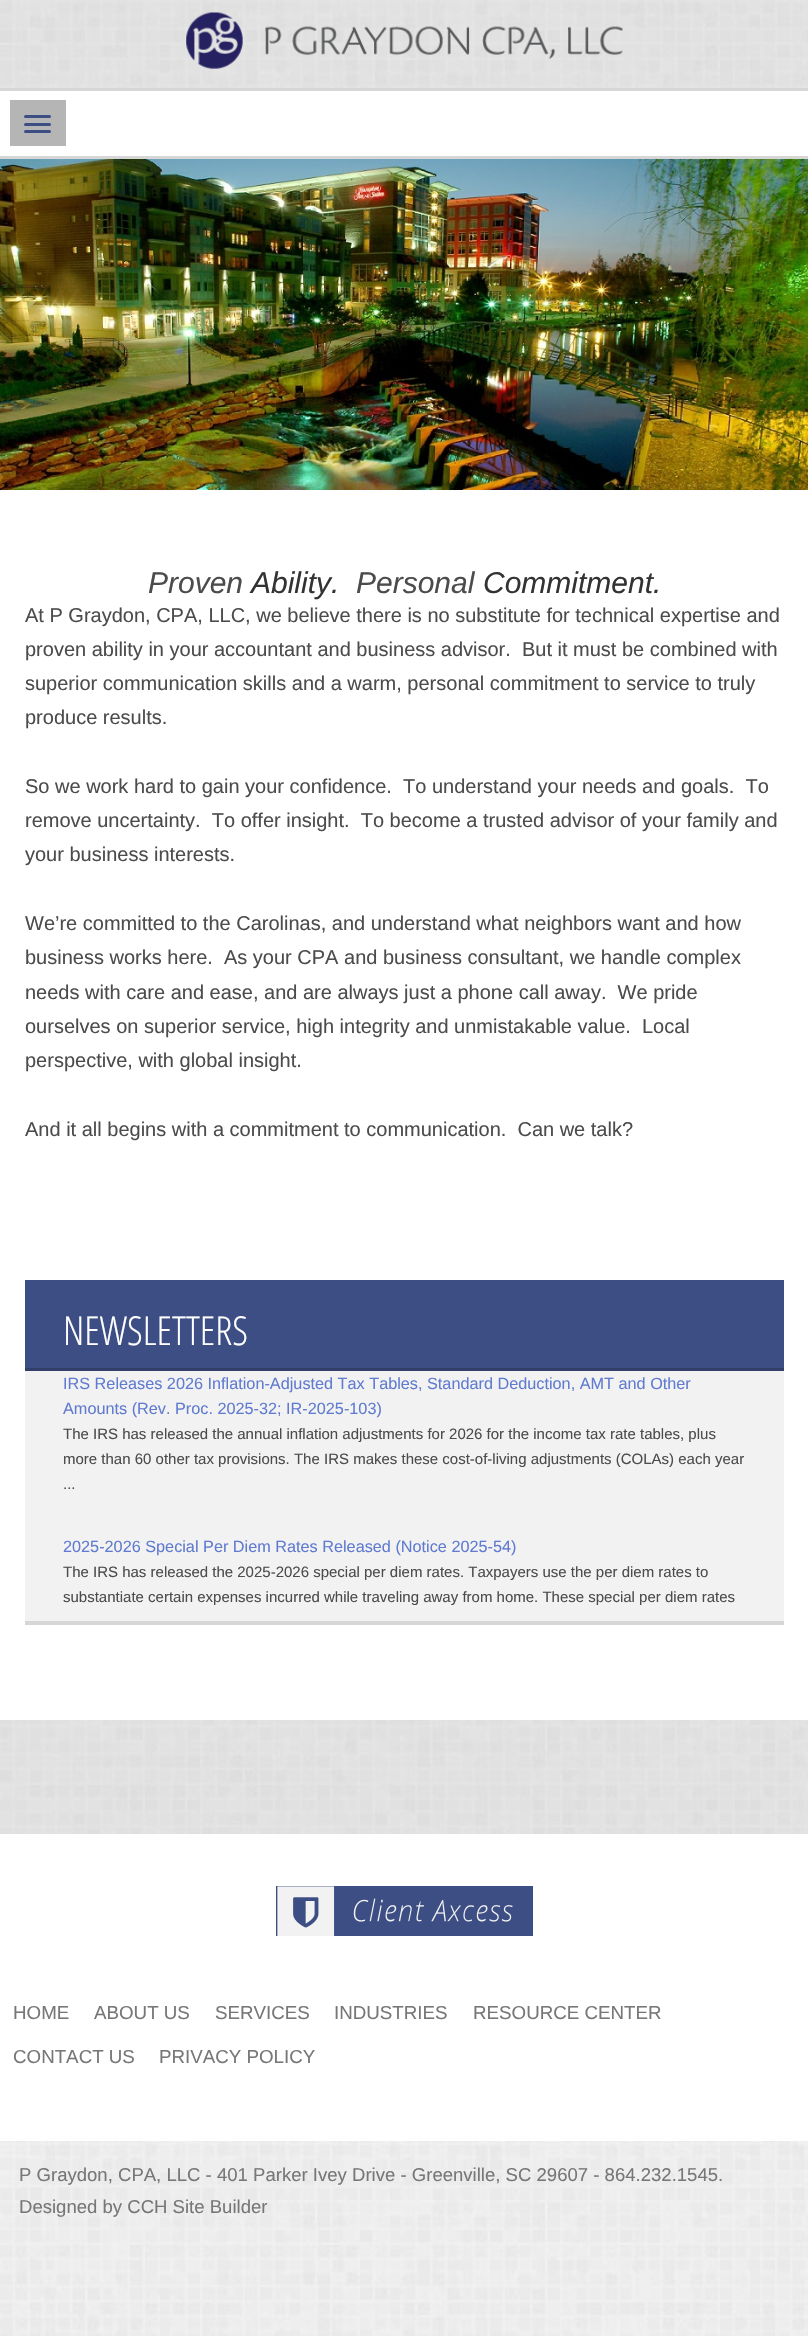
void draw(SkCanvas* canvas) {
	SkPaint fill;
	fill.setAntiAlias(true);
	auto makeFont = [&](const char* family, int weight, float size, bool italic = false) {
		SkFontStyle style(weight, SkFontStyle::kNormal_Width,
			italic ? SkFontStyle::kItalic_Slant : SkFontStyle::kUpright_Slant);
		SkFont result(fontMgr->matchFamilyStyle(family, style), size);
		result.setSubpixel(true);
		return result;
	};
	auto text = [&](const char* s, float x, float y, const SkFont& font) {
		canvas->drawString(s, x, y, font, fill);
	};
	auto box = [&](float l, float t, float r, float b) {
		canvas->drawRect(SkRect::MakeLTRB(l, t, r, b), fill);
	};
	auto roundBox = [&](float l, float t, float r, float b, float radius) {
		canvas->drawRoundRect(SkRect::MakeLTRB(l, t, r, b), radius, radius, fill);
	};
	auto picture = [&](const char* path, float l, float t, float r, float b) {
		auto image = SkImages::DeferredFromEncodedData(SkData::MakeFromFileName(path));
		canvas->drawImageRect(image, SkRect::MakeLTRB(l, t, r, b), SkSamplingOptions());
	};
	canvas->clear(0xFFFFFFFF);
	picture("image0.png", 0, 0, 808, 2336);
	fill.setColor(0x33B5B5B5);
	box(0, 0, 808, 88);
	picture("image1.png", 186, 12, 623, 69);
	fill.setColor(0xFFFFFFFF);
	box(0, 91, 808, 156);
	fill.setColor(0xFFD6D6D6);
	box(0, 88, 808, 91);
	fill.setColor(0xFFB5B5B5);
	box(10, 100, 66, 146);
	fill.setColor(0xFF3D4E84);
	roundBox(24, 115, 51, 118, 1.5f);
	roundBox(24, 123, 51, 126, 1.5f);
	roundBox(24, 130, 51, 133, 1.5f);
	fill.setColor(0xFFD6D6D6);
	box(0, 156, 808, 159);
	picture("image2.png", 0, 159, 808, 490);
	fill.setColor(0xFFFFFFFF);
	box(0, 490, 808, 1720);
	fill.setColor(0xFF3D4E84);
	box(25, 1280, 784, 1368);
	fill.setColor(0xFF313F6A);
	box(25, 1368, 784, 1371);
	fill.setColor(0xFFD6D6D6);
	box(25, 1621, 784, 1625);
	fill.setColor(0xFFF2F2F2);
	box(25, 1371, 784, 1621);
	fill.setColor(0x33B5B5B5);
	box(0, 1720, 808, 1834);
	fill.setColor(0xFFFFFFFF);
	box(0, 1834, 808, 2141);
	fill.setColor(0xFF3D4E84);
	box(276, 1886, 533, 1936);
	picture("image3.png", 277, 1886, 513, 1936);
	auto font1 = makeFont("Liberation Sans", 400, 30, true);
	fill.setColor(0xFF4C4C4C);
	text("Proven", 148, 593, font1);
	fill.setColor(0xFF333333);
	text("Ability.", 251, 593, font1);
	fill.setColor(0xFF4C4C4C);
	text("Personal", 356, 593, font1);
	fill.setColor(0xFF333333);
	text("Commitment.", 483, 593, font1);
	auto font2 = makeFont("Liberation Sans", 400, 20);
	fill.setColor(0xFF4C4C4C);
	text("At P Graydon, CPA, LLC, we believe there is no substitute for technical expertise and", 25, 622, font2);
	text("proven ability in your accountant and business advisor.  But it must be combined with", 25, 656, font2);
	text("superior communication skills and a warm, personal commitment to service to truly", 25, 690, font2);
	text("produce results.", 25, 724, font2);
	text("So we work hard to gain your confidence.  To understand your needs and goals.  To", 25, 793, font2);
	text("remove uncertainty.  To offer insight.  To become a trusted advisor of your family and", 25, 827, font2);
	text("your business interests.", 25, 861, font2);
	text("We’re committed to the Carolinas, and understand what neighbors want and how", 25, 930, font2);
	text("business works here.  As your CPA and business consultant, we handle complex", 25, 964, font2);
	text("needs with care and ease, and are always just a phone call away.  We pride", 25, 999, font2);
	text("ourselves on superior service, high integrity and unmistakable value.  Local", 25, 1033, font2);
	text("perspective, with global insight.", 25, 1067, font2);
	text("And it all begins with a commitment to communication.  Can we talk?", 25, 1136, font2);
	auto font3 = makeFont("Open Sans Condensed", 300, 40);
	fill.setColor(0xFFFFFFFF);
	text("NEWSLETTERS", 63, 1345, font3);
	auto font4 = makeFont("Liberation Sans", 400, 16.25f);
	fill.setColor(0xFF607BD0);
	text("IRS Releases 2026 Inflation-Adjusted Tax Tables, Standard Deduction, AMT and Other", 63, 1389, font4);
	text("Amounts (Rev. Proc. 2025-32; IR-2025-103)", 63, 1414, font4);
	auto font5 = makeFont("Liberation Sans", 400, 15);
	fill.setColor(0xFF4C4C4C);
	text("The IRS has released the annual inflation adjustments for 2026 for the income tax rate tables, plus", 63, 1439, font5);
	text("more than 60 other tax provisions. The IRS makes these cost-of-living adjustments (COLAs) each year", 63, 1464, font5);
	text("...", 63, 1489, font5);
	fill.setColor(0xFF607BD0);
	text("2025-2026 Special Per Diem Rates Released (Notice 2025-54)", 63, 1552, font4);
	fill.setColor(0xFF4C4C4C);
	text("The IRS has released the 2025-2026 special per diem rates. Taxpayers use the per diem rates to", 63, 1577, font5);
	text("substantiate certain expenses incurred while traveling away from home. These special per diem rates", 63, 1602, font5);
	auto font6 = makeFont("Liberation Sans", 400, 18.75f);
	fill.setColor(0xFF777777);
	text("HOME", 13, 2019, font6);
	text("ABOUT US", 94, 2019, font6);
	text("SERVICES", 215, 2019, font6);
	text("INDUSTRIES", 334, 2019, font6);
	text("RESOURCE CENTER", 473, 2019, font6);
	text("CONTACT US", 13, 2063, font6);
	text("PRIVACY POLICY", 159, 2063, font6);
	auto font7 = makeFont("Liberation Sans", 400, 18.55f);
	text("P Graydon, CPA, LLC - 401 Parker Ivey Drive - Greenville, SC 29607 - 864.232.1545.", 19, 2181, font7);
	text("Designed by CCH Site Builder", 19, 2213, font7);
}
